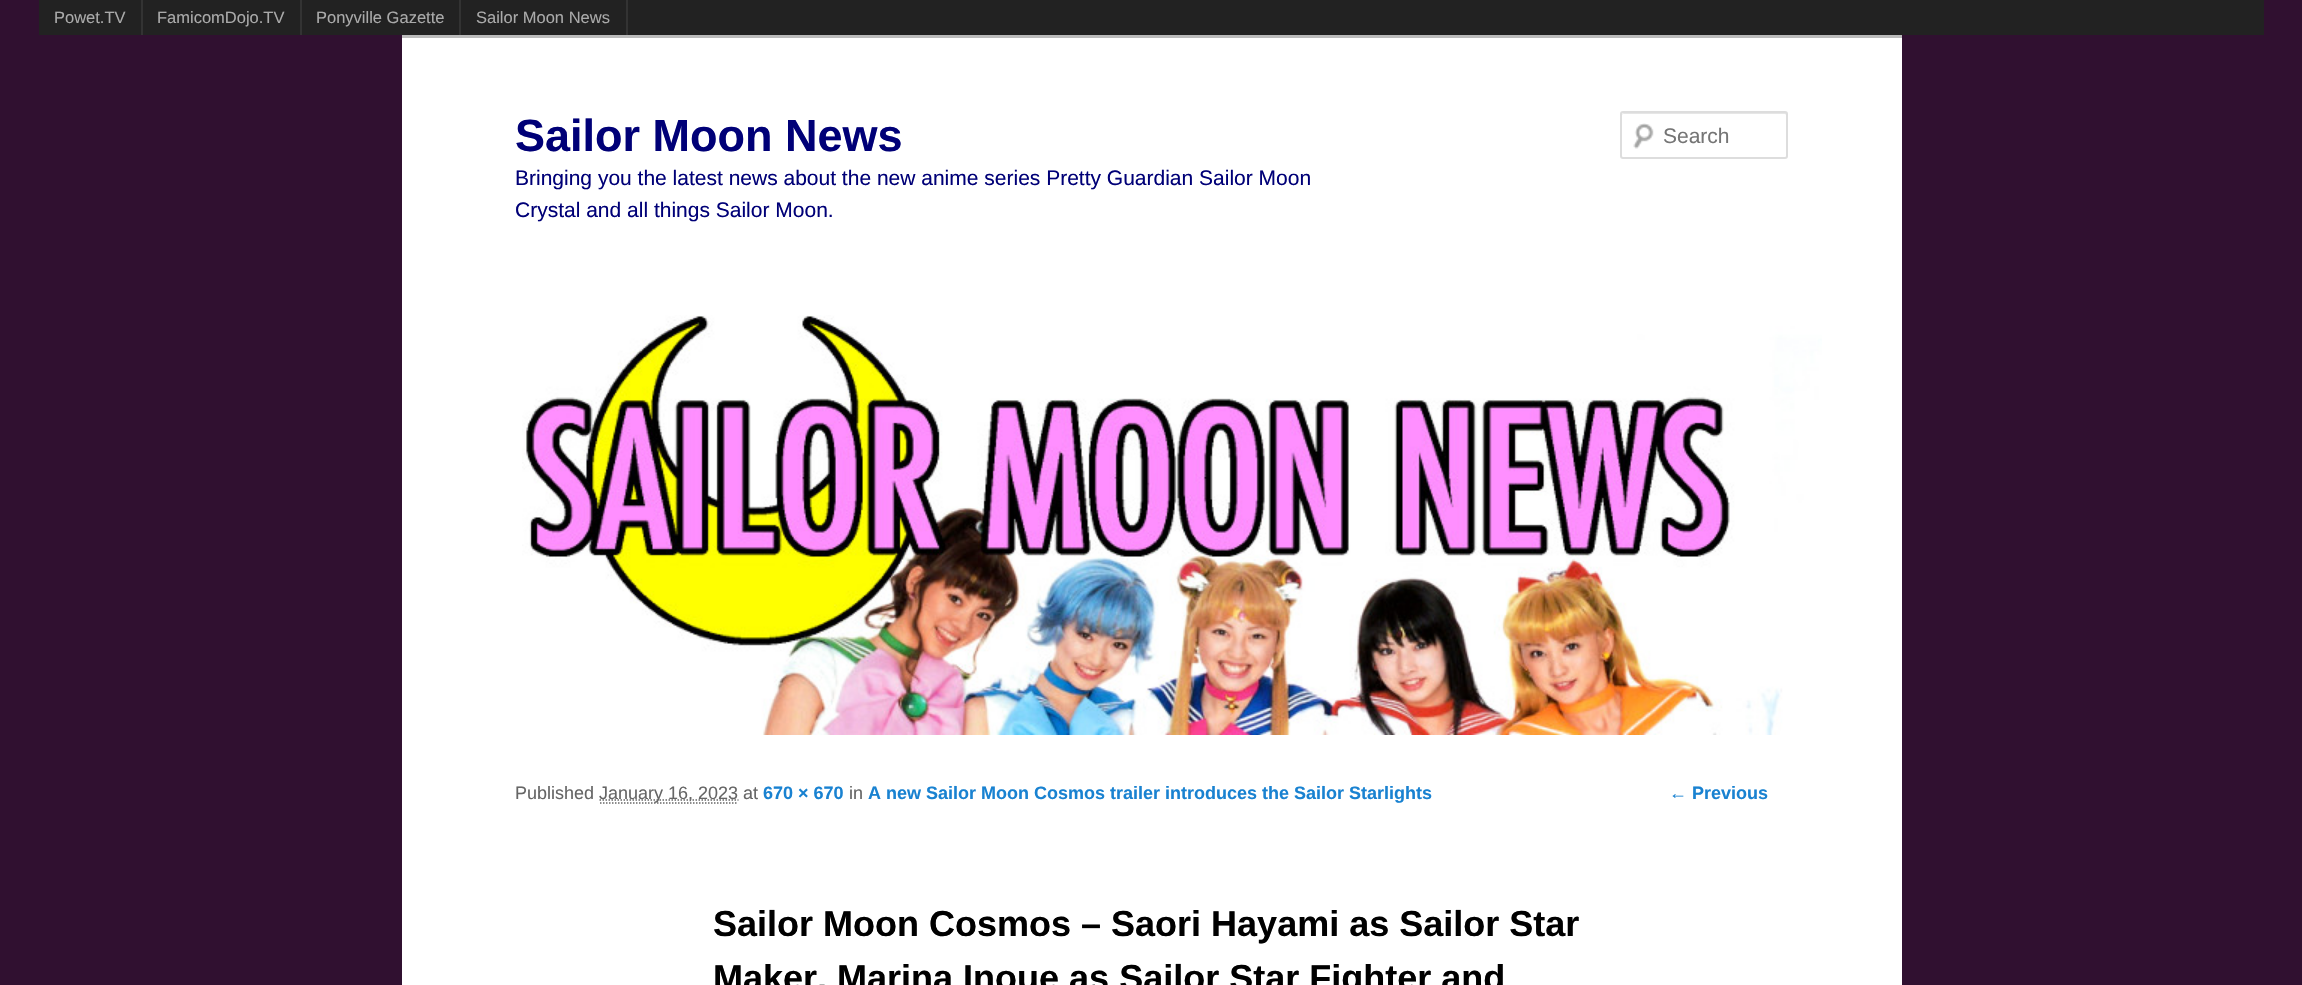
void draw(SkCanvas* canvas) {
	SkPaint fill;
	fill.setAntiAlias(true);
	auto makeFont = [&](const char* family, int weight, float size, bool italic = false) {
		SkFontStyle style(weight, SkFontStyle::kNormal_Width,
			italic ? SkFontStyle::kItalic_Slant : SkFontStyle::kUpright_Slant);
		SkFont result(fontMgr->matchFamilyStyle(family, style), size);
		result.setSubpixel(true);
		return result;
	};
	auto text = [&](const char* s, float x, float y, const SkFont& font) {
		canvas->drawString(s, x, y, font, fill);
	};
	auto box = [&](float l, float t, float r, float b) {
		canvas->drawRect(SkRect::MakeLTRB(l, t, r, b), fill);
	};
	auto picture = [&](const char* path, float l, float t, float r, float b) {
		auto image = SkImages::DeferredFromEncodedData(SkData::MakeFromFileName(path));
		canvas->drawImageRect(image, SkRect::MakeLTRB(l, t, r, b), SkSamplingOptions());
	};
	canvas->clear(0xFF301030);
	fill.setColor(0xFF222222);
	box(39, 0, 2264, 35);
	fill.setColor(0xFF333333);
	box(141, 0, 143, 35);
	box(300, 0, 302, 35);
	box(459, 0, 461, 35);
	box(626, 0, 628, 35);
	fill.setColor(0xFFFFFFFF);
	box(402, 38, 1902, 985);
	fill.setColor(0xFFBBBBBB);
	box(402, 35, 1902, 38);
	picture("image0.png", 1633, 123, 1654, 149);
	fill.setColor(0xFFE6E6E6);
	canvas->drawPath(SkPathBuilder().moveTo(1623, 114).lineTo(1785, 114).cubicTo(1786, 114, 1786, 115, 1786, 116).lineTo(1786, 158).cubicTo(1787, 158, 1787, 157, 1787, 156).lineTo(1787, 114).cubicTo(1787, 114, 1786, 113, 1786, 113).lineTo(1624, 113).cubicTo(1623, 113, 1622, 114, 1622, 114).lineTo(1622, 116).cubicTo(1622, 115, 1622, 114, 1623, 114).close().detach(), fill);
	fill.setStyle(SkPaint::kStroke_Style);
	fill.setStrokeWidth(2);
	fill.setColor(0xFFDDDDDD);
	canvas->drawRoundRect(SkRect::MakeLTRB(1621, 112, 1787, 158), 2, 2, fill);
	picture("image1.png", 522, 315, 1822, 735);
	fill.setStrokeWidth(1.5f);
	fill.setColor(0xFF666666);
	fill.setPathEffect(SkDashPathEffect::Make({{1.5f, 1.5f}}, 0));
	canvas->drawPath(SkPathBuilder().moveTo(600, 803).lineTo(738, 803).detach(), fill);
	fill.setPathEffect(nullptr);
	fill.setPathEffect(SkDashPathEffect::Make({{1.5f, 1.5f}}, 0));
	canvas->drawPath(SkPathBuilder().moveTo(599.5f, 800).lineTo(738.5f, 800).detach(), fill);
	fill.setPathEffect(nullptr);
	auto font1 = makeFont("Liberation Sans", 400, 16.5f);
	fill.setStyle(SkPaint::kFill_Style);
	fill.setColor(0xFFAAAAAA);
	text("Powet.TV", 54, 23, font1);
	text("FamicomDojo.TV", 157, 23, font1);
	text("Ponyville Gazette", 316, 23, font1);
	text("Sailor Moon News", 476, 23, font1);
	auto font2 = makeFont("Liberation Sans", 700, 45);
	fill.setColor(0xFF000077);
	text("Sailor Moon News", 515, 151, font2);
	auto font3 = makeFont("Liberation Sans", 400, 21);
	text("Bringing you the latest news about the new anime series Pretty Guardian Sailor Moon", 515, 185, font3);
	text("Crystal and all things Sailor Moon.", 515, 217, font3);
	fill.setColor(0xFF757575);
	text("Search", 1663, 143, font3);
	auto font4 = makeFont("Liberation Sans", 400, 18);
	fill.setColor(0xFF666666);
	text("Published", 515, 799, font4);
	text("January 16, 2023 at", 599, 799, font4);
	auto font5 = makeFont("Liberation Sans", 700, 18);
	fill.setColor(0xFF1982D1);
	text("670 × 670", 763, 799, font5);
	fill.setColor(0xFF666666);
	text("in", 849, 799, font4);
	fill.setColor(0xFF1982D1);
	text("A new Sailor Moon Cosmos trailer introduces the Sailor Starlights", 868, 799, font5);
	auto font6 = makeFont("Liberation Sans", 700, 36);
	fill.setColor(0xFF000000);
	text("Sailor Moon Cosmos – Saori Hayami as Sailor Star", 713, 936, font6);
	text("Maker, Marina Inoue as Sailor Star Fighter and", 713, 990, font6);
	fill.setColor(0xFF1982D1);
	text("← Previous", 1669, 799, font5);
}
